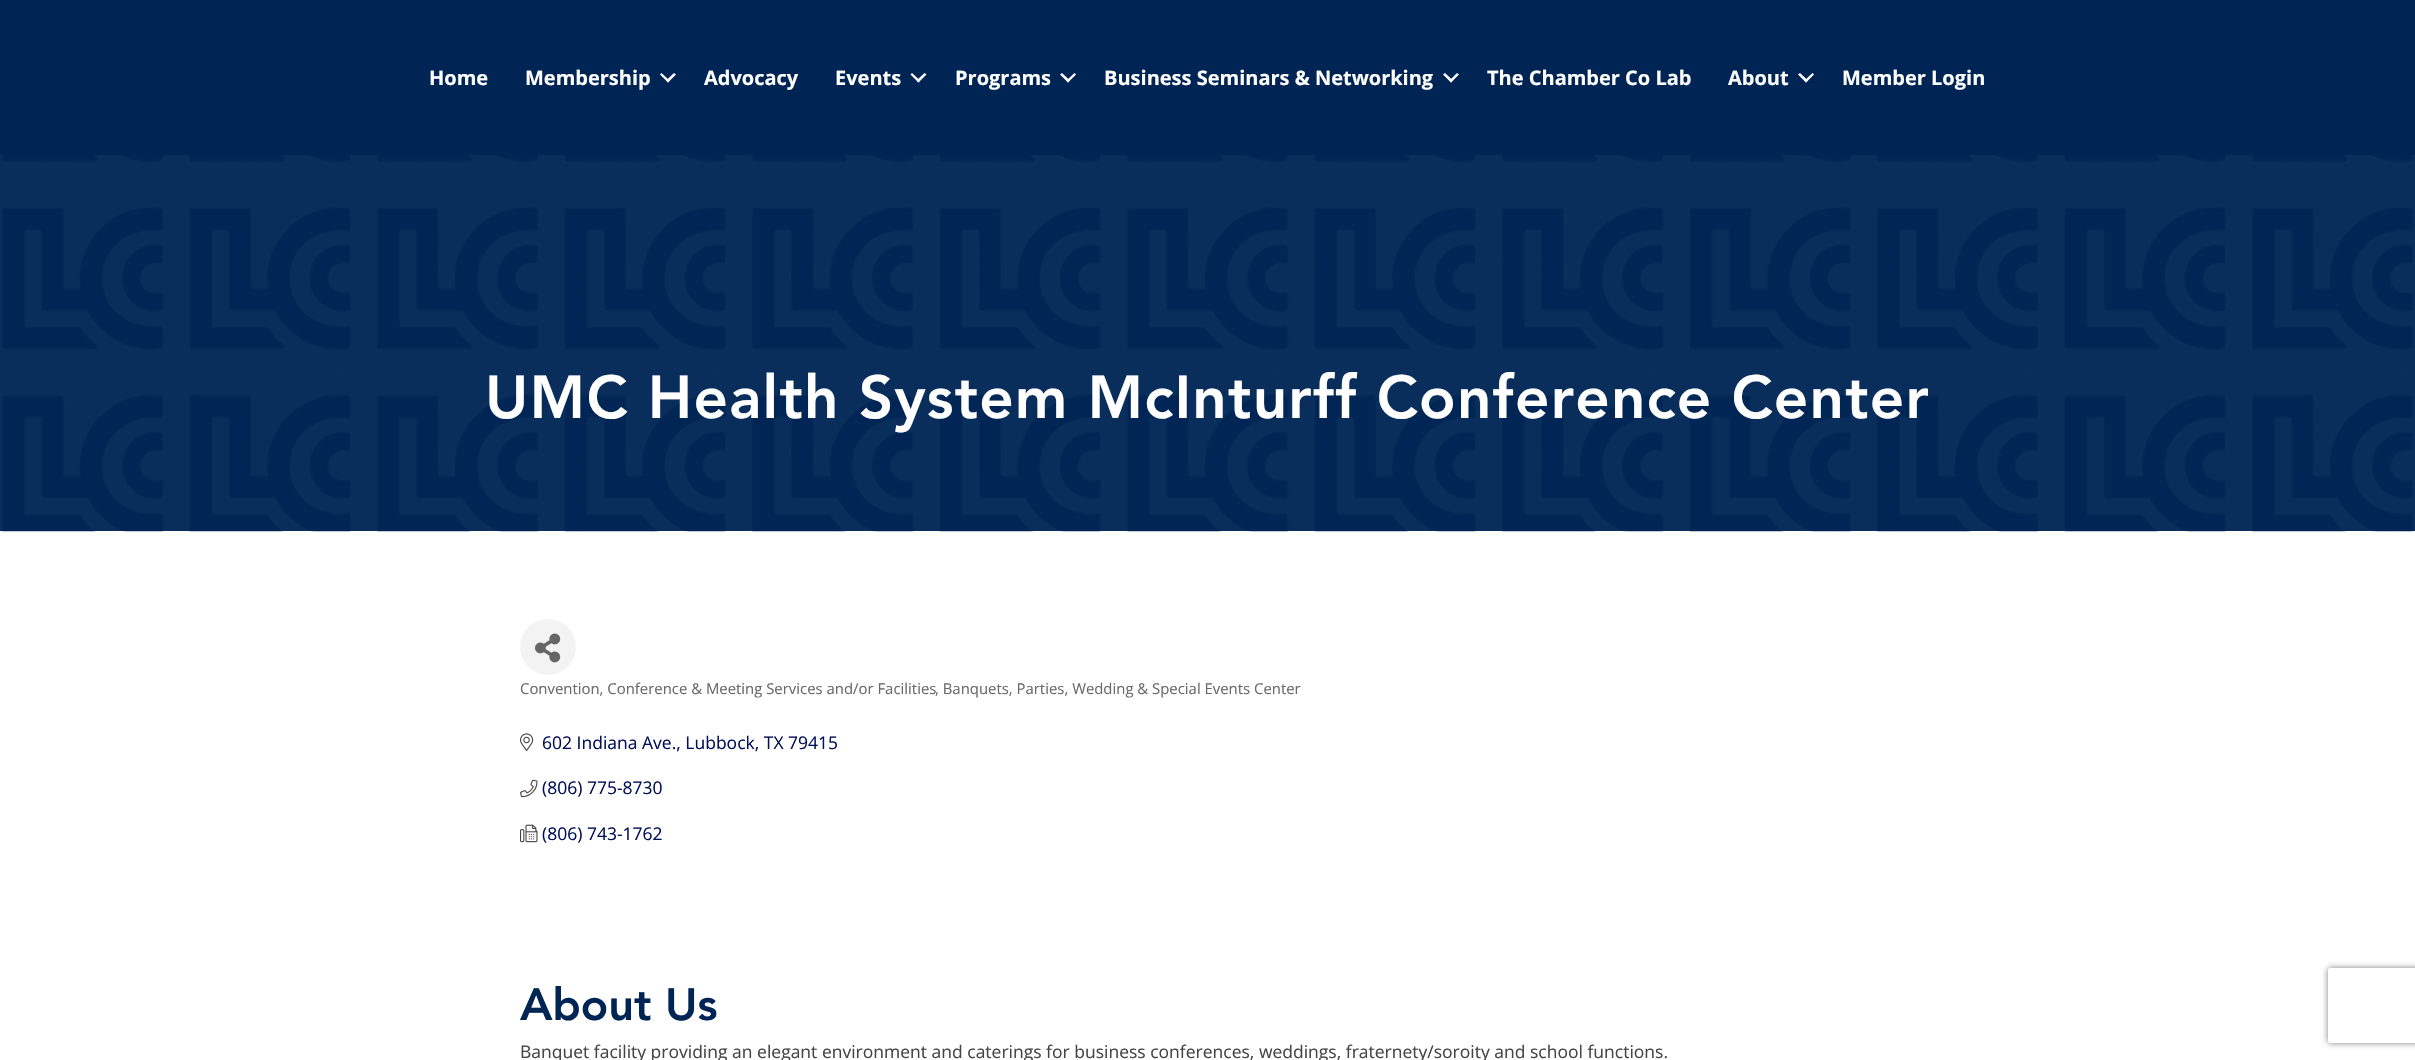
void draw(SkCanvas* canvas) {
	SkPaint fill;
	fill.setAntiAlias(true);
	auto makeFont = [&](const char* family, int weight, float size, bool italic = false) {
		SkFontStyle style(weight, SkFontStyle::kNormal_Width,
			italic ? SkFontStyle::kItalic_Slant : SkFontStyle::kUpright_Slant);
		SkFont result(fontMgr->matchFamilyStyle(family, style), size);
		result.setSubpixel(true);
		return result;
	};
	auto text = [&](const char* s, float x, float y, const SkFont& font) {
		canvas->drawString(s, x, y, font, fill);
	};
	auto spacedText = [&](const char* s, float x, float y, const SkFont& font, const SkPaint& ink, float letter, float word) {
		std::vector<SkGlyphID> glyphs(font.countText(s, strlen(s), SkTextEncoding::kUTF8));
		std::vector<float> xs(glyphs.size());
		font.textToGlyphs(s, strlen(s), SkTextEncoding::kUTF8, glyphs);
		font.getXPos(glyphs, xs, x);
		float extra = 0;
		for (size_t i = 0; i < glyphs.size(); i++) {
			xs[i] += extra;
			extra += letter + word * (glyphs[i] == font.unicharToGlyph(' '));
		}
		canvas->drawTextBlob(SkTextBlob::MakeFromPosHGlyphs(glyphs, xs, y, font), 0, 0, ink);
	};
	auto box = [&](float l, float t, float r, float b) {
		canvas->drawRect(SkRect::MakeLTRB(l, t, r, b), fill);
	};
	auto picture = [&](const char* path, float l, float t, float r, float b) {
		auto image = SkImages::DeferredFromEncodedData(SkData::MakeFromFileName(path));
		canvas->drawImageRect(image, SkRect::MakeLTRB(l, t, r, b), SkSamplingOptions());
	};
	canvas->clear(0xFFFFFFFF);
	fill.setColor(0xFF0A2E5B);
	box(0, 155, 2415, 531);
	fill.setColor(0xFF002554);
	box(0, 0, 2415, 155);
	fill.setColor(0xFFFFFFFF);
	canvas->drawPath(SkPathBuilder().moveTo(674, 73).lineTo(676, 74.5f).lineTo(668, 82.5f).lineTo(666, 80.5f).close().detach(), fill);
	canvas->drawPath(SkPathBuilder().moveTo(661.5f, 73).lineTo(669.5f, 80.5f).lineTo(668, 82.5f).lineTo(660, 74.5f).close().detach(), fill);
	canvas->drawPath(SkPathBuilder().moveTo(924.5f, 73).lineTo(926.5f, 74.5f).lineTo(918.5f, 82.5f).lineTo(916.5f, 80.5f).close().detach(), fill);
	canvas->drawPath(SkPathBuilder().moveTo(912, 73).lineTo(920, 80.5f).lineTo(918.5f, 82.5f).lineTo(910.5f, 74.5f).close().detach(), fill);
	canvas->drawPath(SkPathBuilder().moveTo(1074.5f, 73).lineTo(1076, 74.5f).lineTo(1068, 82.5f).lineTo(1066.5f, 80.5f).close().detach(), fill);
	canvas->drawPath(SkPathBuilder().moveTo(1062, 73).lineTo(1070, 80.5f).lineTo(1068, 82.5f).lineTo(1060, 74.5f).close().detach(), fill);
	canvas->drawPath(SkPathBuilder().moveTo(1457, 73).lineTo(1459, 74.5f).lineTo(1451, 82.5f).lineTo(1449.5f, 80.5f).close().detach(), fill);
	canvas->drawPath(SkPathBuilder().moveTo(1445, 73).lineTo(1453, 80.5f).lineTo(1451, 82.5f).lineTo(1443, 74.5f).close().detach(), fill);
	canvas->drawPath(SkPathBuilder().moveTo(1812.5f, 73).lineTo(1814, 74.5f).lineTo(1806, 82.5f).lineTo(1804.5f, 80.5f).close().detach(), fill);
	canvas->drawPath(SkPathBuilder().moveTo(1800, 73).lineTo(1808, 80.5f).lineTo(1806, 82.5f).lineTo(1798, 74.5f).close().detach(), fill);
	picture("image0.png", 1, 155, 2414, 532);
	fill.setColor(0xFFF3F3F3);
	canvas->drawCircle(548, 647, 28, fill);
	picture("image1.png", 535, 633, 561, 663);
	picture("image2.png", 520, 733, 534, 751);
	picture("image3.png", 520, 779, 538, 798);
	picture("image4.png", 520, 824, 538, 843);
	canvas->save();
	canvas->clipPath(SkPathBuilder(SkPathFillType::kEvenOdd).moveTo(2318, 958).lineTo(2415, 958).lineTo(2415, 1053).lineTo(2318, 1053).close().moveTo(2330.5f, 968).lineTo(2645.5f, 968).cubicTo(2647, 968, 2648, 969, 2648, 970.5f).lineTo(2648, 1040.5f).cubicTo(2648, 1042, 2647, 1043, 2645.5f, 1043).lineTo(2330.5f, 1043).cubicTo(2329, 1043, 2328, 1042, 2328, 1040.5f).lineTo(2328, 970.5f).cubicTo(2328, 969, 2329, 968, 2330.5f, 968).close().detach(), true);
	fill.setColor(0xFF808080);
	fill.setMaskFilter(SkMaskFilter::MakeBlur(kNormal_SkBlurStyle, 3));
	canvas->drawRoundRect(SkRect::MakeLTRB(2328, 968, 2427, 1043), 2.5f, 2.5f, fill);
	fill.setMaskFilter(nullptr);
	canvas->restore();
	auto font1 = makeFont("Open Sans", 700, 20);
	fill.setColor(0xFFFFFFFF);
	text("Home", 429, 85, font1);
	text("Membership", 525, 85, font1);
	text("Advocacy", 704, 85, font1);
	text("Events", 835, 85, font1);
	text("Programs", 955, 85, font1);
	text("Business Seminars & Networking", 1104, 85, font1);
	text("The Chamber Co Lab", 1487, 85, font1);
	text("About", 1728, 85, font1);
	text("Member Login", 1842, 85, font1);
	auto font2 = makeFont("Avenir", 900, 60);
	spacedText("UMC Health System McInturff Conference Center", 485, 418, font2, fill, 1.25f, 0);
	auto font3 = makeFont("Open Sans", 400, 14.9f);
	fill.setColor(0xFF696969);
	text("Convention, Conference & Meeting Services and/or Facilities", 520, 694, font3);
	text(", Banquets, Parties, Wedding & Special Events Center", 935, 694, font3);
	auto font4 = makeFont("Open Sans", 400, 17.5f);
	fill.setColor(0xFF020F59);
	text("602 Indiana Ave., Lubbock, TX 79415", 542, 749, font4);
	text("(806) 775-8730", 542, 794, font4);
	text("(806) 743-1762", 542, 840, font4);
	auto font5 = makeFont("Avenir", 900, 45);
	fill.setColor(0xFF002554);
	text("About Us", 520, 1020, font5);
	fill.setColor(0xFF444444);
	text("Banquet facility providing an elegant environment and caterings for business conferences, weddings, fraternety/soroity and school functions.", 520, 1058, font4);
}
